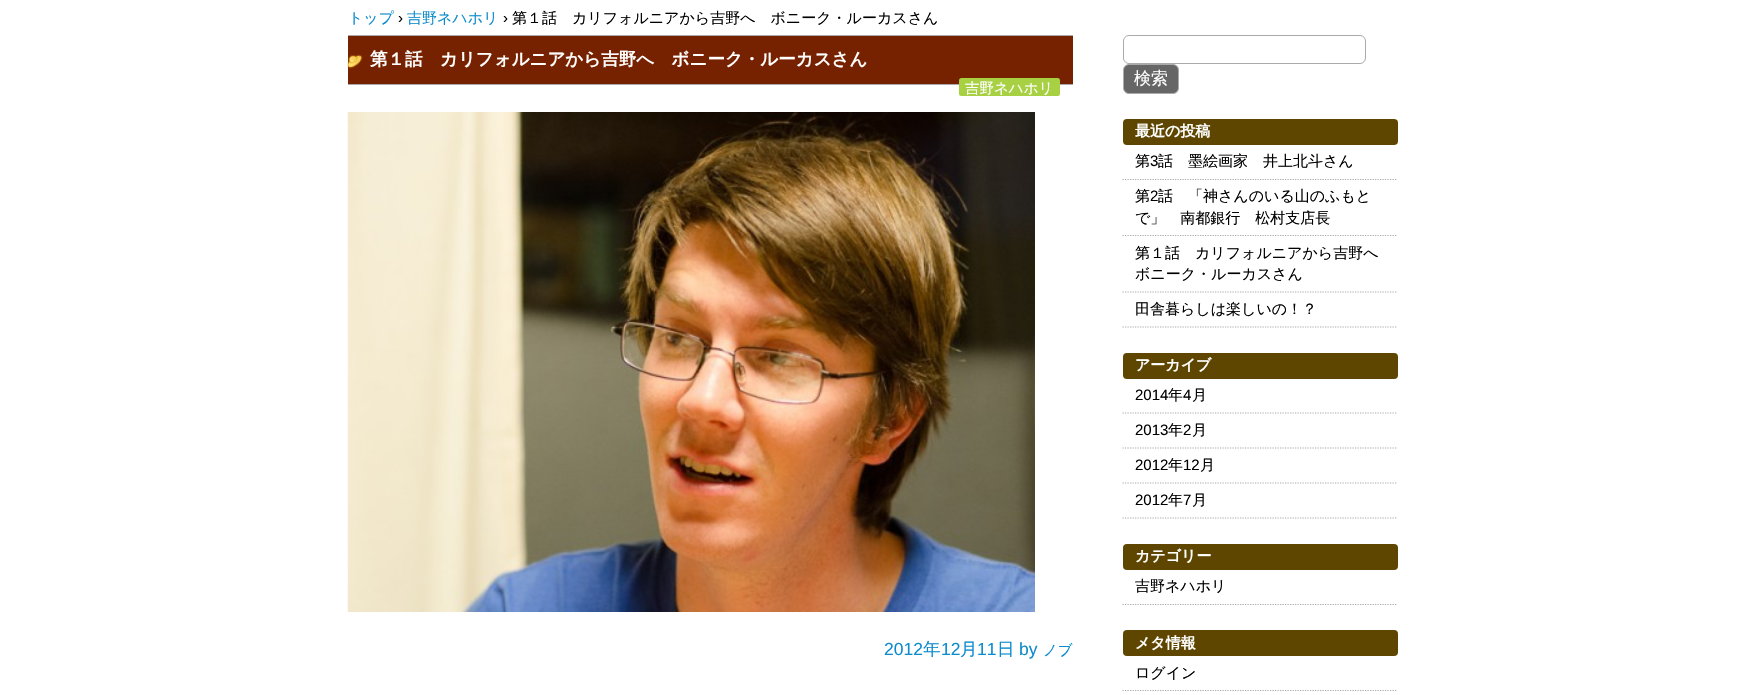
void draw(SkCanvas* canvas) {
	SkPaint fill;
	fill.setAntiAlias(true);
	auto makeFont = [&](const char* family, int weight, float size, bool italic = false) {
		SkFontStyle style(weight, SkFontStyle::kNormal_Width,
			italic ? SkFontStyle::kItalic_Slant : SkFontStyle::kUpright_Slant);
		SkFont result(fontMgr->matchFamilyStyle(family, style), size);
		result.setSubpixel(true);
		return result;
	};
	auto text = [&](const char* s, float x, float y, const SkFont& font) {
		canvas->drawString(s, x, y, font, fill);
	};
	auto box = [&](float l, float t, float r, float b) {
		canvas->drawRect(SkRect::MakeLTRB(l, t, r, b), fill);
	};
	auto roundBox = [&](float l, float t, float r, float b, float radius) {
		canvas->drawRoundRect(SkRect::MakeLTRB(l, t, r, b), radius, radius, fill);
	};
	auto picture = [&](const char* path, float l, float t, float r, float b) {
		auto image = SkImages::DeferredFromEncodedData(SkData::MakeFromFileName(path));
		canvas->drawImageRect(image, SkRect::MakeLTRB(l, t, r, b), SkSamplingOptions());
	};
	canvas->clear(0xFFFFFFFF);
	fill.setColor(0xFF762100);
	box(348, 36, 1073, 84);
	picture("image0.png", 347, 54, 363, 69);
	fill.setColor(0xFFAAAAAA);
	box(348, 35, 1073, 36);
	box(348, 84, 1073, 85);
	fill.setColor(0xFFA7D043);
	roundBox(959, 78, 1060, 96, 2.5f);
	picture("image1.png", 347, 112, 1035, 612);
	fill.setStyle(SkPaint::kStroke_Style);
	fill.setStrokeWidth(1);
	fill.setColor(0xFFAAAAAA);
	canvas->drawRoundRect(SkRect::MakeLTRB(1123.5f, 35.5f, 1365.5f, 63.5f), 5.5f, 5.5f, fill);
	fill.setStyle(SkPaint::kFill_Style);
	fill.setColor(0xFF666666);
	canvas->drawRoundRect(SkRect::MakeLTRB(1123.5f, 64.5f, 1178.5f, 93.5f), 5.5f, 5.5f, fill);
	fill.setStyle(SkPaint::kStroke_Style);
	fill.setColor(0xFFAAAAAA);
	canvas->drawRoundRect(SkRect::MakeLTRB(1123.5f, 64.5f, 1178.5f, 93.5f), 5.5f, 5.5f, fill);
	fill.setStyle(SkPaint::kFill_Style);
	fill.setColor(0xFF5E4500);
	roundBox(1123, 119, 1398, 145, 4);
	fill.setStyle(SkPaint::kStroke_Style);
	fill.setStrokeWidth(1.2f);
	fill.setColor(0xFFAAAAAA);
	fill.setPathEffect(SkDashPathEffect::Make({{1.25f, 1.25f}}, 0));
	canvas->drawPath(SkPathBuilder().moveTo(1122.5f, 179.5f).lineTo(1397.5f, 179.5f).detach(), fill);
	fill.setPathEffect(nullptr);
	fill.setPathEffect(SkDashPathEffect::Make({{1.25f, 1.25f}}, 0));
	canvas->drawPath(SkPathBuilder().moveTo(1122.5f, 235.5f).lineTo(1397.5f, 235.5f).detach(), fill);
	fill.setPathEffect(nullptr);
	fill.setPathEffect(SkDashPathEffect::Make({{1.25f, 1.25f}}, 0));
	canvas->drawPath(SkPathBuilder().moveTo(1122.5f, 292).lineTo(1397.5f, 292).detach(), fill);
	fill.setPathEffect(nullptr);
	fill.setPathEffect(SkDashPathEffect::Make({{1.25f, 1.25f}}, 0));
	canvas->drawPath(SkPathBuilder().moveTo(1122.5f, 327).lineTo(1397.5f, 327).detach(), fill);
	fill.setPathEffect(nullptr);
	fill.setStyle(SkPaint::kFill_Style);
	fill.setColor(0xFF5E4500);
	roundBox(1123, 353, 1398, 379, 4);
	fill.setStyle(SkPaint::kStroke_Style);
	fill.setColor(0xFFAAAAAA);
	fill.setPathEffect(SkDashPathEffect::Make({{1.25f, 1.25f}}, 0));
	canvas->drawPath(SkPathBuilder().moveTo(1122.5f, 413).lineTo(1397.5f, 413).detach(), fill);
	fill.setPathEffect(nullptr);
	fill.setPathEffect(SkDashPathEffect::Make({{1.25f, 1.25f}}, 0));
	canvas->drawPath(SkPathBuilder().moveTo(1122.5f, 448).lineTo(1397.5f, 448).detach(), fill);
	fill.setPathEffect(nullptr);
	fill.setPathEffect(SkDashPathEffect::Make({{1.25f, 1.25f}}, 0));
	canvas->drawPath(SkPathBuilder().moveTo(1122.5f, 483).lineTo(1397.5f, 483).detach(), fill);
	fill.setPathEffect(nullptr);
	fill.setPathEffect(SkDashPathEffect::Make({{1.25f, 1.25f}}, 0));
	canvas->drawPath(SkPathBuilder().moveTo(1122.5f, 518).lineTo(1397.5f, 518).detach(), fill);
	fill.setPathEffect(nullptr);
	fill.setStyle(SkPaint::kFill_Style);
	fill.setColor(0xFF5E4500);
	roundBox(1123, 544, 1398, 570, 4);
	fill.setStyle(SkPaint::kStroke_Style);
	fill.setColor(0xFFAAAAAA);
	fill.setPathEffect(SkDashPathEffect::Make({{1.25f, 1.25f}}, 0));
	canvas->drawPath(SkPathBuilder().moveTo(1122.5f, 604.5f).lineTo(1397.5f, 604.5f).detach(), fill);
	fill.setPathEffect(nullptr);
	fill.setStyle(SkPaint::kFill_Style);
	fill.setColor(0xFF5E4500);
	roundBox(1123, 630, 1398, 656, 4);
	fill.setStyle(SkPaint::kStroke_Style);
	fill.setColor(0xFFAAAAAA);
	fill.setPathEffect(SkDashPathEffect::Make({{1.25f, 1.25f}}, 0));
	canvas->drawPath(SkPathBuilder().moveTo(1122.5f, 690.5f).lineTo(1397.5f, 690.5f).detach(), fill);
	fill.setPathEffect(nullptr);
	auto font1 = makeFont("WenQuanYi Zen Hei", 500, 15);
	fill.setStyle(SkPaint::kFill_Style);
	fill.setColor(0xFF0C8BCD);
	text("トップ", 348, 23, font1);
	auto font2 = makeFont("Liberation Sans", 400, 15);
	fill.setColor(0xFF000000);
	text("›", 398, 23, font2);
	fill.setColor(0xFF0C8BCD);
	text("吉野ネハホリ", 407, 23, font1);
	fill.setColor(0xFF000000);
	text("›", 503, 23, font2);
	text("第１話　カリフォルニアから吉野へ　ボニーク・ルーカスさん", 512, 23, font1);
	auto font3 = makeFont("WenQuanYi Zen Hei", 700, 17.5f);
	fill.setColor(0xFFFFFFFF);
	text("第１話　カリフォルニアから吉野へ　ボニーク・ルーカスさん", 370, 65, font3);
	auto font4 = makeFont("WenQuanYi Zen Hei", 500, 14.5f);
	text("吉野ネハホリ", 965, 93, font4);
	auto font5 = makeFont("Liberation Sans", 400, 17.5f);
	fill.setColor(0xFF0C8BCD);
	text("2012", 884, 655, font5);
	auto font6 = makeFont("WenQuanYi Zen Hei", 500, 17.5f);
	text("年", 923, 655, font6);
	text("12", 941, 655, font5);
	text("月", 960, 655, font6);
	text("11", 977, 655, font5);
	text("日", 997, 655, font6);
	text("by", 1019, 655, font5);
	text("ノブ", 1043, 655, font4);
	auto font7 = makeFont("WenQuanYi Zen Hei", 500, 17);
	fill.setColor(0xFFFFFFFF);
	text("検索", 1134, 84, font7);
	auto font8 = makeFont("WenQuanYi Zen Hei", 700, 15);
	text("最近の投稿", 1135, 136, font8);
	fill.setColor(0xFF000000);
	text("第", 1135, 166, font1);
	text("3", 1150, 166, font2);
	text("話　墨絵画家　井上北斗さん", 1158, 166, font1);
	text("第", 1135, 201, font1);
	text("2", 1150, 201, font2);
	text("話　「神さんのいる山のふもと", 1158, 201, font1);
	text("で」　南都銀行　松村支店長", 1135, 223, font1);
	text("第１話　カリフォルニアから吉野へ", 1135, 258, font1);
	text("ボニーク・ルーカスさん", 1135, 279, font1);
	text("田舎暮らしは楽しいの！？", 1135, 314, font1);
	fill.setColor(0xFFFFFFFF);
	text("アーカイブ", 1135, 370, font8);
	fill.setColor(0xFF000000);
	text("2014", 1135, 400, font2);
	text("年", 1168, 400, font1);
	text("4", 1183, 400, font2);
	text("月", 1192, 400, font1);
	text("2013", 1135, 435, font2);
	text("年", 1168, 435, font1);
	text("2", 1183, 435, font2);
	text("月", 1192, 435, font1);
	text("2012", 1135, 470, font2);
	text("年", 1168, 470, font1);
	text("12", 1183, 470, font2);
	text("月", 1200, 470, font1);
	text("2012", 1135, 505, font2);
	text("年", 1168, 505, font1);
	text("7", 1183, 505, font2);
	text("月", 1192, 505, font1);
	fill.setColor(0xFFFFFFFF);
	text("カテゴリー", 1135, 561, font8);
	fill.setColor(0xFF000000);
	text("吉野ネハホリ", 1135, 591, font1);
	fill.setColor(0xFFFFFFFF);
	text("メタ情報", 1135, 648, font8);
	fill.setColor(0xFF000000);
	text("ログイン", 1135, 678, font1);
}
